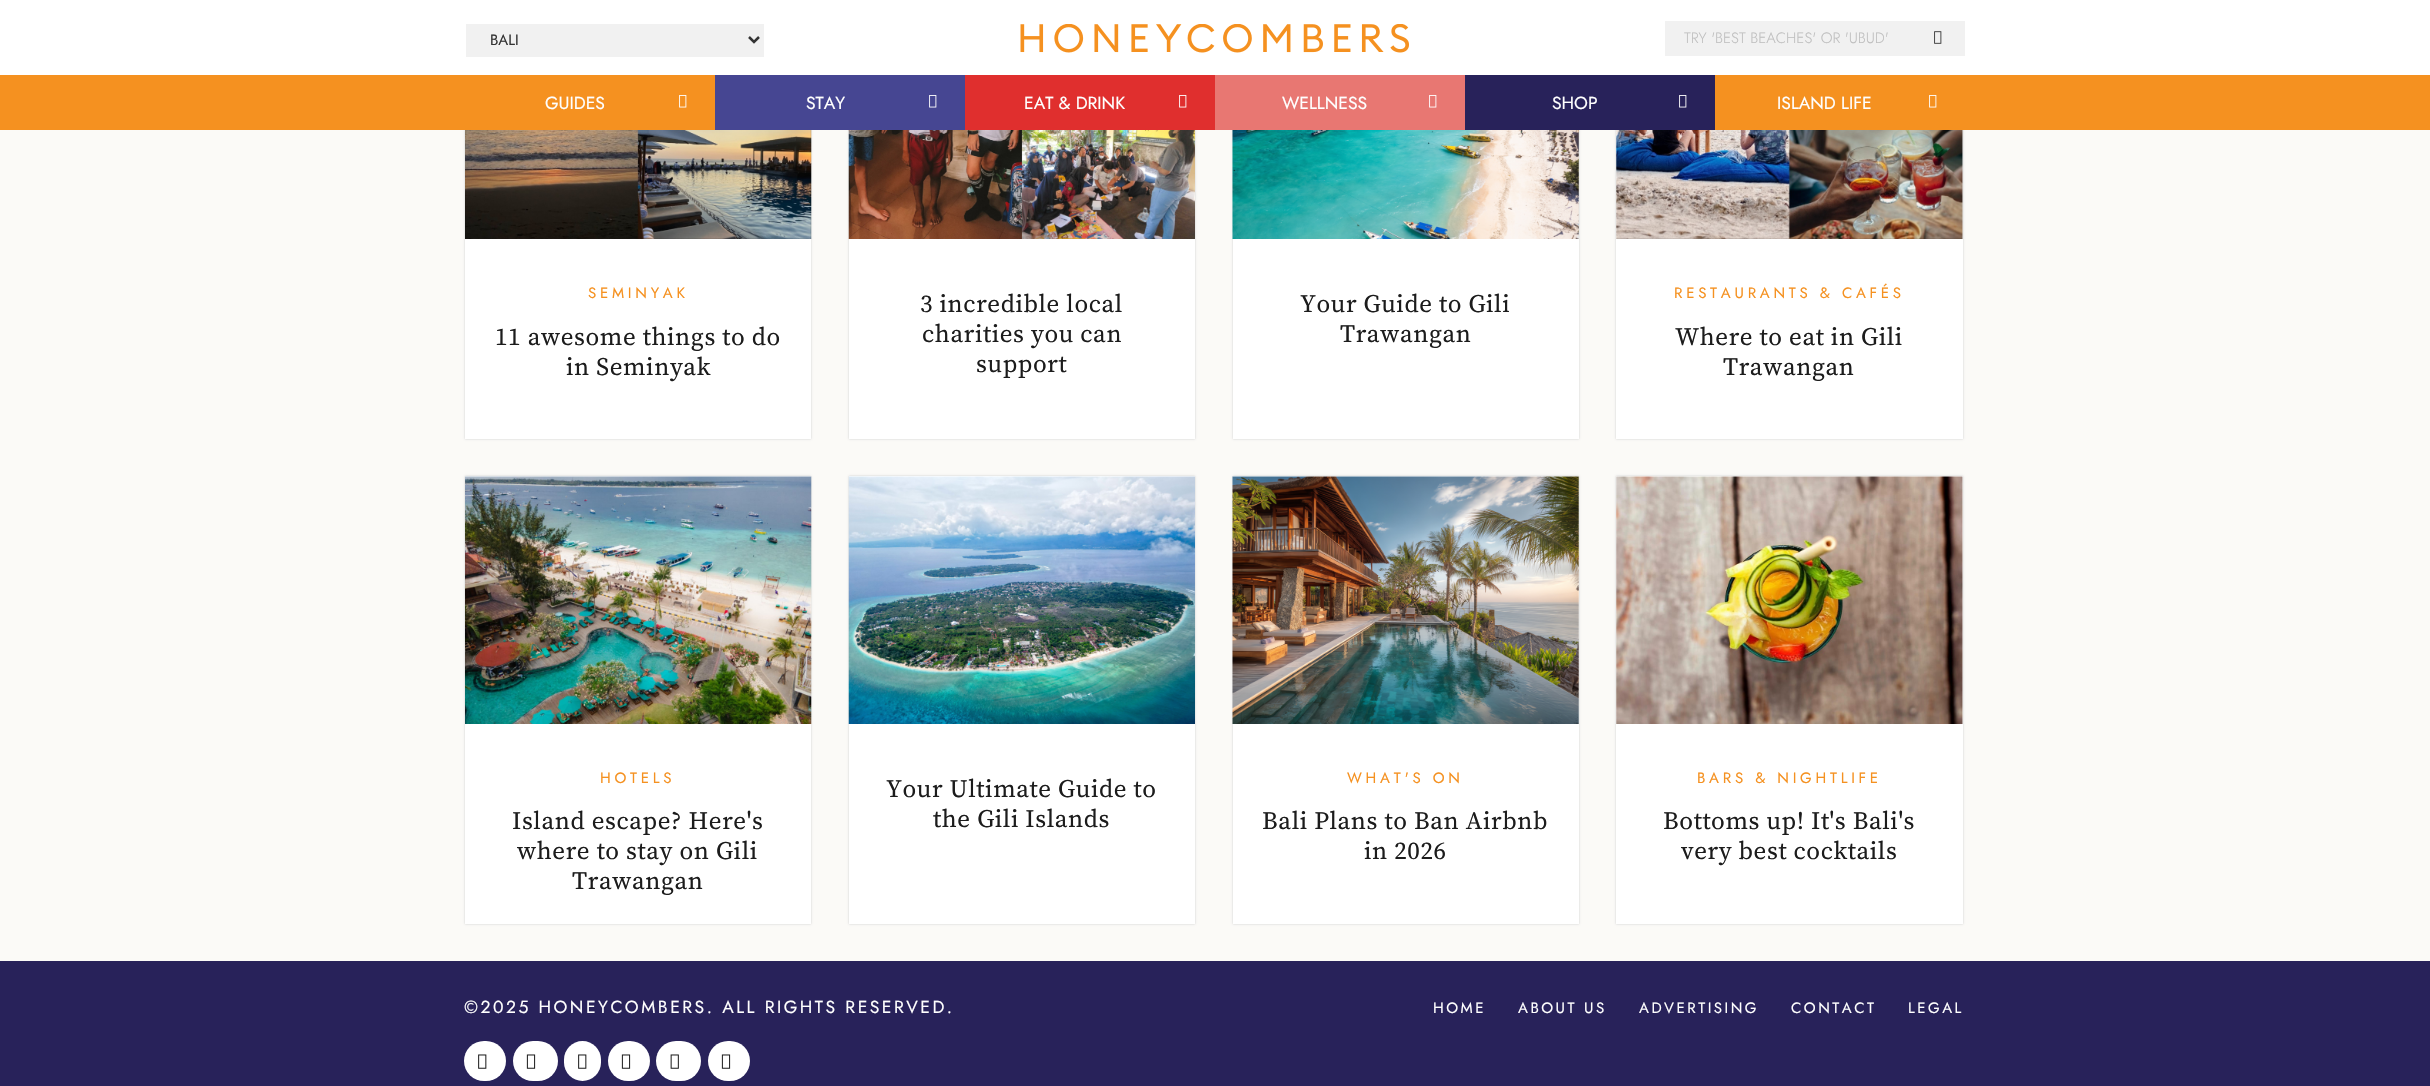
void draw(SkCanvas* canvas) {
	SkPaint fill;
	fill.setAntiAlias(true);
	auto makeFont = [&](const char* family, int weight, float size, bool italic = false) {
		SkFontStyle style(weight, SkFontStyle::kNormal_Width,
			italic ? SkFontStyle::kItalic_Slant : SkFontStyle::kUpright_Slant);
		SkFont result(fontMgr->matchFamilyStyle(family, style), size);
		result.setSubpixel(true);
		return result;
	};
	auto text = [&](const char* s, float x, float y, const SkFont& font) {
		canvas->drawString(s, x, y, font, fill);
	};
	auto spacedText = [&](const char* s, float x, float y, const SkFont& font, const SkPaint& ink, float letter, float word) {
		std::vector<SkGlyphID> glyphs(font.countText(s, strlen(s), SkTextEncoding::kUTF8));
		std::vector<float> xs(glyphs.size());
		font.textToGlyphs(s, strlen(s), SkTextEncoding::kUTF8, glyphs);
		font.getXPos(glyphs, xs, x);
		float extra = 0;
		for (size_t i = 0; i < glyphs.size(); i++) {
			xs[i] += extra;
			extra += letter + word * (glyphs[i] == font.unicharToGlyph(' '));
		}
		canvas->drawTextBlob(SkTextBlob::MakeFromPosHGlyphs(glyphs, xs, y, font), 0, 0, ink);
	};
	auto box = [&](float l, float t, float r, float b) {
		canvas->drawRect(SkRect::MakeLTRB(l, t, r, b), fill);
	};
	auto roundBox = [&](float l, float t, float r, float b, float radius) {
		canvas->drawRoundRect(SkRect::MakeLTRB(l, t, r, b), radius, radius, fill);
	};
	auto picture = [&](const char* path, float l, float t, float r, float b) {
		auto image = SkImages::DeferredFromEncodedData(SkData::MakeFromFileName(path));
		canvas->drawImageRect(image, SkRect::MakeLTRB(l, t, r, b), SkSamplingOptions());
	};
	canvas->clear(0xFFFBFAF7);
	fill.setColor(0xFFCCCCCC);
	fill.setMaskFilter(SkMaskFilter::MakeBlur(kNormal_SkBlurStyle, 1));
	canvas->drawRect(SkRect::MakeLTRB(465, -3, 811, 439), fill);
	fill.setMaskFilter(nullptr);
	fill.setMaskFilter(SkMaskFilter::MakeBlur(kNormal_SkBlurStyle, 1));
	canvas->drawRect(SkRect::MakeLTRB(849, -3, 1195, 439), fill);
	fill.setMaskFilter(nullptr);
	fill.setMaskFilter(SkMaskFilter::MakeBlur(kNormal_SkBlurStyle, 1));
	canvas->drawRect(SkRect::MakeLTRB(1233, -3, 1579, 439), fill);
	fill.setMaskFilter(nullptr);
	fill.setMaskFilter(SkMaskFilter::MakeBlur(kNormal_SkBlurStyle, 1));
	canvas->drawRect(SkRect::MakeLTRB(1616, -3, 1963, 439), fill);
	fill.setMaskFilter(nullptr);
	fill.setColor(0xFFFFFFFF);
	box(0, 0, 2430, 75);
	fill.setColor(0xFFF1F1F1);
	box(466, 24, 764, 57);
	fill.setStyle(SkPaint::kStroke_Style);
	fill.setStrokeWidth(2.5f);
	fill.setColor(0xFF333333);
	canvas->drawPath(SkPathBuilder().moveTo(749, 37).lineTo(754, 42).lineTo(759, 37).detach(), fill);
	picture("image0.png", 1020, 24, 1409, 53);
	fill.setStyle(SkPaint::kFill_Style);
	fill.setColor(0xFFF1F1F1);
	box(1665, 21, 1965, 56);
	picture("image1.png", 1934, 31, 1942, 44);
	fill.setColor(0xFFF59120);
	box(0, 75, 2430, 130);
	picture("image2.png", 679, 95, 687, 108);
	fill.setColor(0xFF464692);
	box(715, 75, 965, 130);
	picture("image3.png", 929, 95, 937, 108);
	fill.setColor(0xFFE02F2E);
	box(965, 75, 1215, 130);
	picture("image4.png", 1179, 95, 1187, 108);
	fill.setColor(0xFFE87772);
	box(1215, 75, 1465, 130);
	picture("image5.png", 1429, 95, 1437, 108);
	fill.setColor(0xFF28225A);
	box(1465, 75, 1715, 130);
	picture("image6.png", 1679, 95, 1687, 108);
	picture("image2.png", 1929, 95, 1937, 108);
	picture("image7.png", 465, 130, 812, 239);
	fill.setColor(0xFFFFFFFF);
	box(465, 239, 811, 439);
	picture("image8.png", 848, 130, 1195, 239);
	box(849, 239, 1195, 439);
	picture("image9.png", 1232, 130, 1579, 239);
	box(1233, 239, 1579, 439);
	box(1616, 130, 1963, 439);
	picture("image10.png", 1616, 130, 1963, 239);
	fill.setColor(0xFFCCCCCC);
	fill.setMaskFilter(SkMaskFilter::MakeBlur(kNormal_SkBlurStyle, 1));
	canvas->drawRect(SkRect::MakeLTRB(465, 476, 811, 924), fill);
	fill.setMaskFilter(nullptr);
	fill.setColor(0xFFFFFFFF);
	box(465, 476, 811, 477);
	picture("image11.png", 465, 476, 812, 724);
	box(465, 724, 811, 924);
	fill.setColor(0xFFCCCCCC);
	fill.setMaskFilter(SkMaskFilter::MakeBlur(kNormal_SkBlurStyle, 1));
	canvas->drawRect(SkRect::MakeLTRB(849, 476, 1195, 924), fill);
	fill.setMaskFilter(nullptr);
	fill.setColor(0xFFFFFFFF);
	box(849, 476, 1195, 477);
	picture("image12.png", 848, 476, 1195, 724);
	box(849, 724, 1195, 924);
	fill.setColor(0xFFCCCCCC);
	fill.setMaskFilter(SkMaskFilter::MakeBlur(kNormal_SkBlurStyle, 1));
	canvas->drawRect(SkRect::MakeLTRB(1233, 476, 1579, 924), fill);
	fill.setMaskFilter(nullptr);
	fill.setColor(0xFFFFFFFF);
	box(1233, 476, 1579, 924);
	picture("image13.png", 1232, 476, 1579, 724);
	fill.setColor(0xFFCCCCCC);
	fill.setMaskFilter(SkMaskFilter::MakeBlur(kNormal_SkBlurStyle, 1));
	canvas->drawRect(SkRect::MakeLTRB(1616, 476, 1963, 924), fill);
	fill.setMaskFilter(nullptr);
	fill.setColor(0xFFFFFFFF);
	box(1616, 476, 1963, 924);
	picture("image14.png", 1616, 476, 1963, 724);
	fill.setColor(0xFF28225A);
	box(0, 961, 2430, 1086);
	fill.setColor(0xFFFFFFFF);
	roundBox(464, 1041, 506, 1081, 20);
	picture("image15.png", 478, 1054, 487, 1069);
	roundBox(513, 1041, 558, 1081, 20);
	picture("image16.png", 526, 1054, 536, 1069);
	roundBox(564, 1041, 601, 1081, 18.5f);
	picture("image15.png", 578, 1054, 587, 1069);
	roundBox(608, 1041, 650, 1081, 20);
	picture("image16.png", 621, 1054, 631, 1069);
	roundBox(656, 1041, 701, 1081, 20);
	picture("image17.png", 670, 1054, 679, 1069);
	roundBox(708, 1041, 750, 1081, 20);
	picture("image16.png", 721, 1054, 731, 1069);
	auto font1 = makeFont("Jost", 400, 15);
	fill.setColor(0xFF333333);
	text("BALI", 490, 45, font1);
	auto font2 = makeFont("Jost", 300, 15);
	fill.setColor(0xFFBFBFBF);
	text("TRY 'BEST BEACHES' OR 'UBUD'", 1684, 43, font2);
	auto font3 = makeFont("Jost", 400, 17.5f);
	fill.setColor(0xFFFFFFFF);
	text("GUIDES", 545, 109, font3);
	text("STAY", 806, 109, font3);
	text("EAT & DRINK", 1024, 109, font3);
	text("WELLNESS", 1282, 109, font3);
	text("SHOP", 1552, 109, font3);
	text("ISLAND LIFE", 1777, 109, font3);
	fill.setColor(0xFFF59120);
	spacedText("SEMINYAK", 588, 298, font1, fill, 3.75f, 0);
	auto font4 = makeFont("Source Serif 4", 400, 25);
	fill.setColor(0xFF1C1C1C);
	spacedText("11 awesome things to do", 495, 345, font4, fill, 0.6f, 0);
	spacedText("in Seminyak", 566, 375, font4, fill, 0.6f, 0);
	spacedText("3 incredible local", 920, 312, font4, fill, 0.6f, 0);
	spacedText("charities you can", 922, 342, font4, fill, 0.6f, 0);
	spacedText("support", 976, 372, font4, fill, 0.6f, 0);
	spacedText("Your Guide to Gili", 1300, 312, font4, fill, 0.6f, 0);
	spacedText("Trawangan", 1340, 342, font4, fill, 0.6f, 0);
	fill.setColor(0xFFF59120);
	spacedText("RESTAURANTS & CAFÉS", 1674, 298, font1, fill, 3.75f, 0);
	fill.setColor(0xFF1C1C1C);
	spacedText("Where to eat in Gili", 1675, 345, font4, fill, 0.6f, 0);
	spacedText("Trawangan", 1723, 375, font4, fill, 0.6f, 0);
	fill.setColor(0xFFF59120);
	spacedText("HOTELS", 600, 783, font1, fill, 3.75f, 0);
	fill.setColor(0xFF1C1C1C);
	spacedText("Island escape? Here's", 512, 829, font4, fill, 0.6f, 0);
	spacedText("where to stay on Gili", 517, 859, font4, fill, 0.6f, 0);
	spacedText("Trawangan", 572, 889, font4, fill, 0.6f, 0);
	spacedText("Your Ultimate Guide to", 886, 797, font4, fill, 0.6f, 0);
	spacedText("the Gili Islands", 933, 827, font4, fill, 0.6f, 0);
	fill.setColor(0xFFF59120);
	spacedText("WHAT'S ON", 1347, 783, font1, fill, 3.75f, 0);
	fill.setColor(0xFF1C1C1C);
	spacedText("Bali Plans to Ban Airbnb", 1262, 829, font4, fill, 0.6f, 0);
	spacedText("in 2026", 1364, 859, font4, fill, 0.6f, 0);
	fill.setColor(0xFFF59120);
	spacedText("BARS & NIGHTLIFE", 1697, 783, font1, fill, 3.75f, 0);
	fill.setColor(0xFF1C1C1C);
	spacedText("Bottoms up! It's Bali's", 1663, 829, font4, fill, 0.6f, 0);
	spacedText("very best cocktails", 1681, 859, font4, fill, 0.6f, 0);
	fill.setColor(0xFFFFFFFF);
	spacedText("©2025 HONEYCOMBERS. ALL RIGHTS RESERVED.", 464, 1013, font3, fill, 2.5f, 0);
	spacedText("HOME", 1433, 1013, font1, fill, 2.5f, 0);
	spacedText("ABOUT US", 1518, 1013, font1, fill, 2.5f, 0);
	spacedText("ADVERTISING", 1639, 1013, font1, fill, 2.5f, 0);
	spacedText("CONTACT", 1791, 1013, font1, fill, 2.5f, 0);
	spacedText("LEGAL", 1908, 1013, font1, fill, 2.5f, 0);
}
